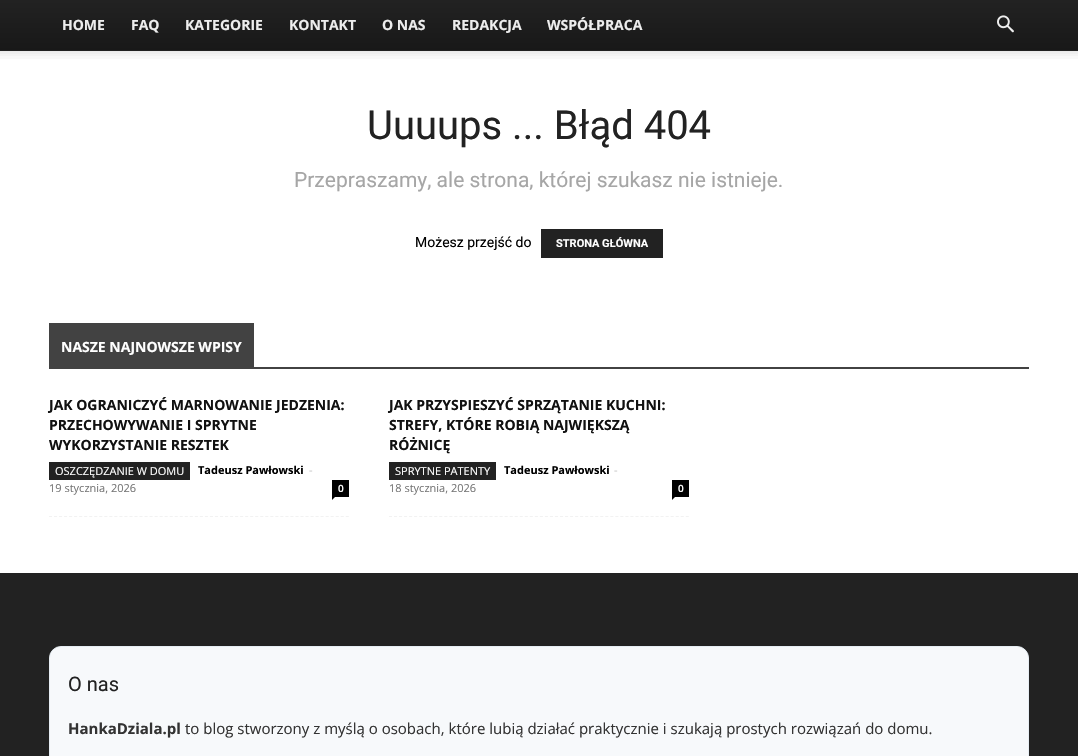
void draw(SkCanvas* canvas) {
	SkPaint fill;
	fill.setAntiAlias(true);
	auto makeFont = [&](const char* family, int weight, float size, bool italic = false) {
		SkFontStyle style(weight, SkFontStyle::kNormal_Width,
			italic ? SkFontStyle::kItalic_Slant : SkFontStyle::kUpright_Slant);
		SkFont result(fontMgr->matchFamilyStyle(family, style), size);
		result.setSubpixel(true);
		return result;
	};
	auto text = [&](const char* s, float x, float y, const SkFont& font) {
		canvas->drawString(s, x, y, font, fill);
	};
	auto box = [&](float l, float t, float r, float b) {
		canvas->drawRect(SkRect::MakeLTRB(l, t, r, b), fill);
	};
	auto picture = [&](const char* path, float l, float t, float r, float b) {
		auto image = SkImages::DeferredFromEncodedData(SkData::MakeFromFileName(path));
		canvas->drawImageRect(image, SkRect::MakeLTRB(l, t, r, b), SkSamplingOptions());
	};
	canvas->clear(0xFFFFFFFF);
	{
		const SkColor colors[] = {0xFF222222, 0xFF181818};
		const float stops[] = {0, 1};
		const SkPoint ends[] = {{539, 0}, {539, 50}};
		fill.setShader(SkGradientShader::MakeLinear(ends, colors, stops, 2, SkTileMode::kClamp));
		fill.setAlpha(255);
	}
	box(0, 0, 1078, 50);
	picture("image0.png", 997, 15, 1014, 33);
	picture("image1.png", 0, 51, 1078, 59);
	fill.setShader(nullptr);
	fill.setColor(0xFF222222);
	box(0, 50, 1078, 51);
	box(541, 229, 663, 258);
	fill.setColor(0xFF424242);
	box(49, 367, 1029, 369);
	box(49, 323, 254, 367);
	fill.setStyle(SkPaint::kStroke_Style);
	fill.setStrokeWidth(1);
	fill.setColor(0xFFF2F2F2);
	fill.setPathEffect(SkDashPathEffect::Make({{3, 2.03f}}, 0));
	canvas->drawPath(SkPathBuilder().moveTo(49, 516.5f).lineTo(349, 516.5f).detach(), fill);
	fill.setPathEffect(nullptr);
	fill.setStyle(SkPaint::kFill_Style);
	fill.setColor(0xFF222222);
	box(49, 462, 190, 480);
	fill.setColor(0xFF000000);
	box(332, 480, 349, 497);
	canvas->drawPath(SkPathBuilder().moveTo(332, 497).lineTo(335, 497).lineTo(332, 500).close().detach(), fill);
	fill.setStyle(SkPaint::kStroke_Style);
	fill.setColor(0xFFF2F2F2);
	fill.setPathEffect(SkDashPathEffect::Make({{3, 2.03f}}, 0));
	canvas->drawPath(SkPathBuilder().moveTo(389, 516.5f).lineTo(689, 516.5f).detach(), fill);
	fill.setPathEffect(nullptr);
	fill.setStyle(SkPaint::kFill_Style);
	fill.setColor(0xFF222222);
	box(389, 462, 496, 480);
	fill.setColor(0xFF000000);
	box(672, 480, 689, 497);
	canvas->drawPath(SkPathBuilder().moveTo(672, 497).lineTo(675, 497).lineTo(672, 500).close().detach(), fill);
	fill.setColor(0xFF222222);
	box(0, 573, 1078, 756);
	fill.setColor(0xFFF7F9FB);
	canvas->drawRoundRect(SkRect::MakeLTRB(49.5f, 646.5f, 1028.5f, 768.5f), 11.5f, 11.5f, fill);
	fill.setStyle(SkPaint::kStroke_Style);
	fill.setColor(0xFFE6EDF3);
	canvas->drawRoundRect(SkRect::MakeLTRB(49.5f, 646.5f, 1028.5f, 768.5f), 11.5f, 11.5f, fill);
	auto font1 = makeFont("Open Sans", 700, 14);
	fill.setStyle(SkPaint::kFill_Style);
	fill.setColor(0xFFEDEDED);
	text("HOME", 62, 30, font1);
	text("FAQ", 131, 30, font1);
	text("KATEGORIE", 185, 30, font1);
	text("KONTAKT", 289, 30, font1);
	text("O NAS", 382, 30, font1);
	text("REDAKCJA", 452, 30, font1);
	text("WSPÓŁPRACA", 547, 30, font1);
	auto font2 = makeFont("Roboto", 400, 40);
	fill.setColor(0xFF222222);
	text("Uuuups ... Błąd 404", 367, 139, font2);
	auto font3 = makeFont("Roboto", 400, 21);
	fill.setColor(0xFFA6A6A6);
	text("Przepraszamy, ale strona, której szukasz nie istnieje.", 294, 187, font3);
	auto font4 = makeFont("Roboto", 400, 14);
	fill.setColor(0xFF000000);
	text("Możesz przejść do", 415, 247, font4);
	auto font5 = makeFont("Roboto", 700, 11);
	fill.setColor(0xFFFFFFFF);
	text("STRONA GŁÓWNA", 556, 247, font5);
	text("NASZE NAJNOWSZE WPISY", 61, 352, font1);
	fill.setColor(0xFF111111);
	text("JAK OGRANICZYĆ MARNOWANIE JEDZENIA:", 49, 410, font1);
	text("PRZECHOWYWANIE I SPRYTNE", 49, 430, font1);
	text("WYKORZYSTANIE RESZTEK", 49, 450, font1);
	auto font6 = makeFont("Open Sans", 400, 11);
	fill.setColor(0xFFFFFFFF);
	text("OSZCZĘDZANIE W DOMU", 55, 475, font6);
	auto font7 = makeFont("Open Sans", 700, 11);
	fill.setColor(0xFF000000);
	text("Tadeusz Pawłowski", 198, 474, font7);
	fill.setColor(0xFFCCCCCC);
	text("-", 309, 474, font6);
	fill.setColor(0xFF767676);
	text("19 stycznia, 2026", 49, 492, font6);
	auto font8 = makeFont("Open Sans", 600, 10);
	fill.setColor(0xFFFFFFFF);
	text("0", 338, 492, font8);
	fill.setColor(0xFF111111);
	text("JAK PRZYSPIESZYĆ SPRZĄTANIE KUCHNI:", 389, 410, font1);
	text("STREFY, KTÓRE ROBIĄ NAJWIĘKSZĄ", 389, 430, font1);
	text("RÓŻNICĘ", 389, 450, font1);
	fill.setColor(0xFFFFFFFF);
	text("SPRYTNE PATENTY", 395, 475, font6);
	fill.setColor(0xFF000000);
	text("Tadeusz Pawłowski", 504, 474, font7);
	fill.setColor(0xFFCCCCCC);
	text("-", 614, 474, font6);
	fill.setColor(0xFF767676);
	text("18 stycznia, 2026", 389, 492, font6);
	fill.setColor(0xFFFFFFFF);
	text("0", 678, 492, font8);
	auto font9 = makeFont("Roboto", 400, 20);
	fill.setColor(0xFF222222);
	text("O nas", 68, 691, font9);
	auto font10 = makeFont("Open Sans", 700, 15);
	fill.setColor(0xFF333333);
	text("HankaDziala.pl", 68, 734, font10);
	auto font11 = makeFont("Open Sans", 400, 15);
	text("to blog stworzony z myślą o osobach, które lubią działać praktycznie i szukają prostych rozwiązań do domu.", 185, 734, font11);
}
